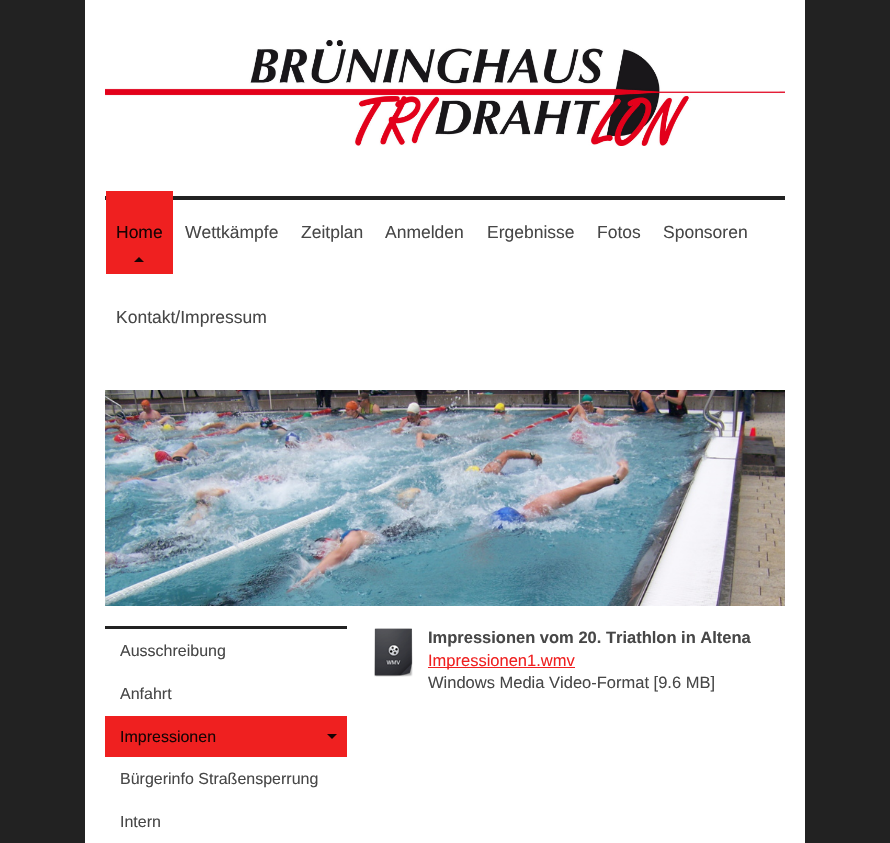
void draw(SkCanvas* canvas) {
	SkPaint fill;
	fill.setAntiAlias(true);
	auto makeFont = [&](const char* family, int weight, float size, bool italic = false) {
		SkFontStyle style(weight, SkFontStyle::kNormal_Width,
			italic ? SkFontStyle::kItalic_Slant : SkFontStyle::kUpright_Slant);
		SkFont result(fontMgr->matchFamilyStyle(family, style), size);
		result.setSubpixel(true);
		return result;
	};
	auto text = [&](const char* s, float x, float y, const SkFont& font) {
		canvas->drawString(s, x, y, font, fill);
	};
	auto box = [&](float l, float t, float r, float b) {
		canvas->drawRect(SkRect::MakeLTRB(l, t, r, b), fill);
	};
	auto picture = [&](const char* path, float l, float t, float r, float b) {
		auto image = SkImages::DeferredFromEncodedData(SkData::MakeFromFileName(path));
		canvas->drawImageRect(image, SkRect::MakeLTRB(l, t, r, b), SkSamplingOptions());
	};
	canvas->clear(0xFF222222);
	fill.setColor(0xFFFFFFFF);
	box(85, 0, 805, 843);
	picture("image0.png", 105, 40, 785, 146);
	fill.setColor(0xFF222222);
	box(105, 196, 785, 200);
	fill.setColor(0xFFEF2020);
	box(106, 191, 173, 274);
	fill.setColor(0xFF180303);
	canvas->drawPath(SkPathBuilder().moveTo(144, 262).lineTo(134, 262).lineTo(139, 257).close().detach(), fill);
	picture("image1.png", 105, 390, 785, 606);
	fill.setColor(0xFF222222);
	box(105, 626, 347, 629);
	fill.setColor(0xFFEF2020);
	box(105, 716, 347, 757);
	fill.setColor(0xFF180303);
	canvas->drawPath(SkPathBuilder().moveTo(327, 734).lineTo(337, 734).lineTo(332, 739).close().detach(), fill);
	picture("image2.png", 374, 628, 413, 677);
	fill.setColor(0xFFEF2020);
	box(428, 667, 575, 668);
	auto font1 = makeFont("Liberation Sans", 400, 17.5f);
	fill.setColor(0xFF180303);
	text("Home", 116, 238, font1);
	fill.setColor(0xFF474747);
	text("Wettkämpfe", 185, 238, font1);
	text("Zeitplan", 301, 238, font1);
	text("Anmelden", 385, 238, font1);
	text("Ergebnisse", 487, 238, font1);
	text("Fotos", 597, 238, font1);
	text("Sponsoren", 663, 238, font1);
	text("Kontakt/Impressum", 116, 323, font1);
	auto font2 = makeFont("Liberation Sans", 400, 16);
	text("Ausschreibung", 120, 656, font2);
	text("Anfahrt", 120, 699, font2);
	fill.setColor(0xFF180303);
	text("Impressionen", 120, 742, font2);
	fill.setColor(0xFF474747);
	text("Bürgerinfo Straßensperrung", 120, 784, font2);
	text("Intern", 120, 827, font2);
	auto font3 = makeFont("Liberation Sans", 700, 16.5f);
	text("Impressionen vom 20. Triathlon in Altena", 428, 643, font3);
	auto font4 = makeFont("Liberation Sans", 400, 16.5f);
	fill.setColor(0xFFEF2020);
	text("Impressionen1.wmv", 428, 666, font4);
	fill.setColor(0xFF474747);
	text("Windows Media Video-Format [9.6 MB]", 428, 688, font4);
}
